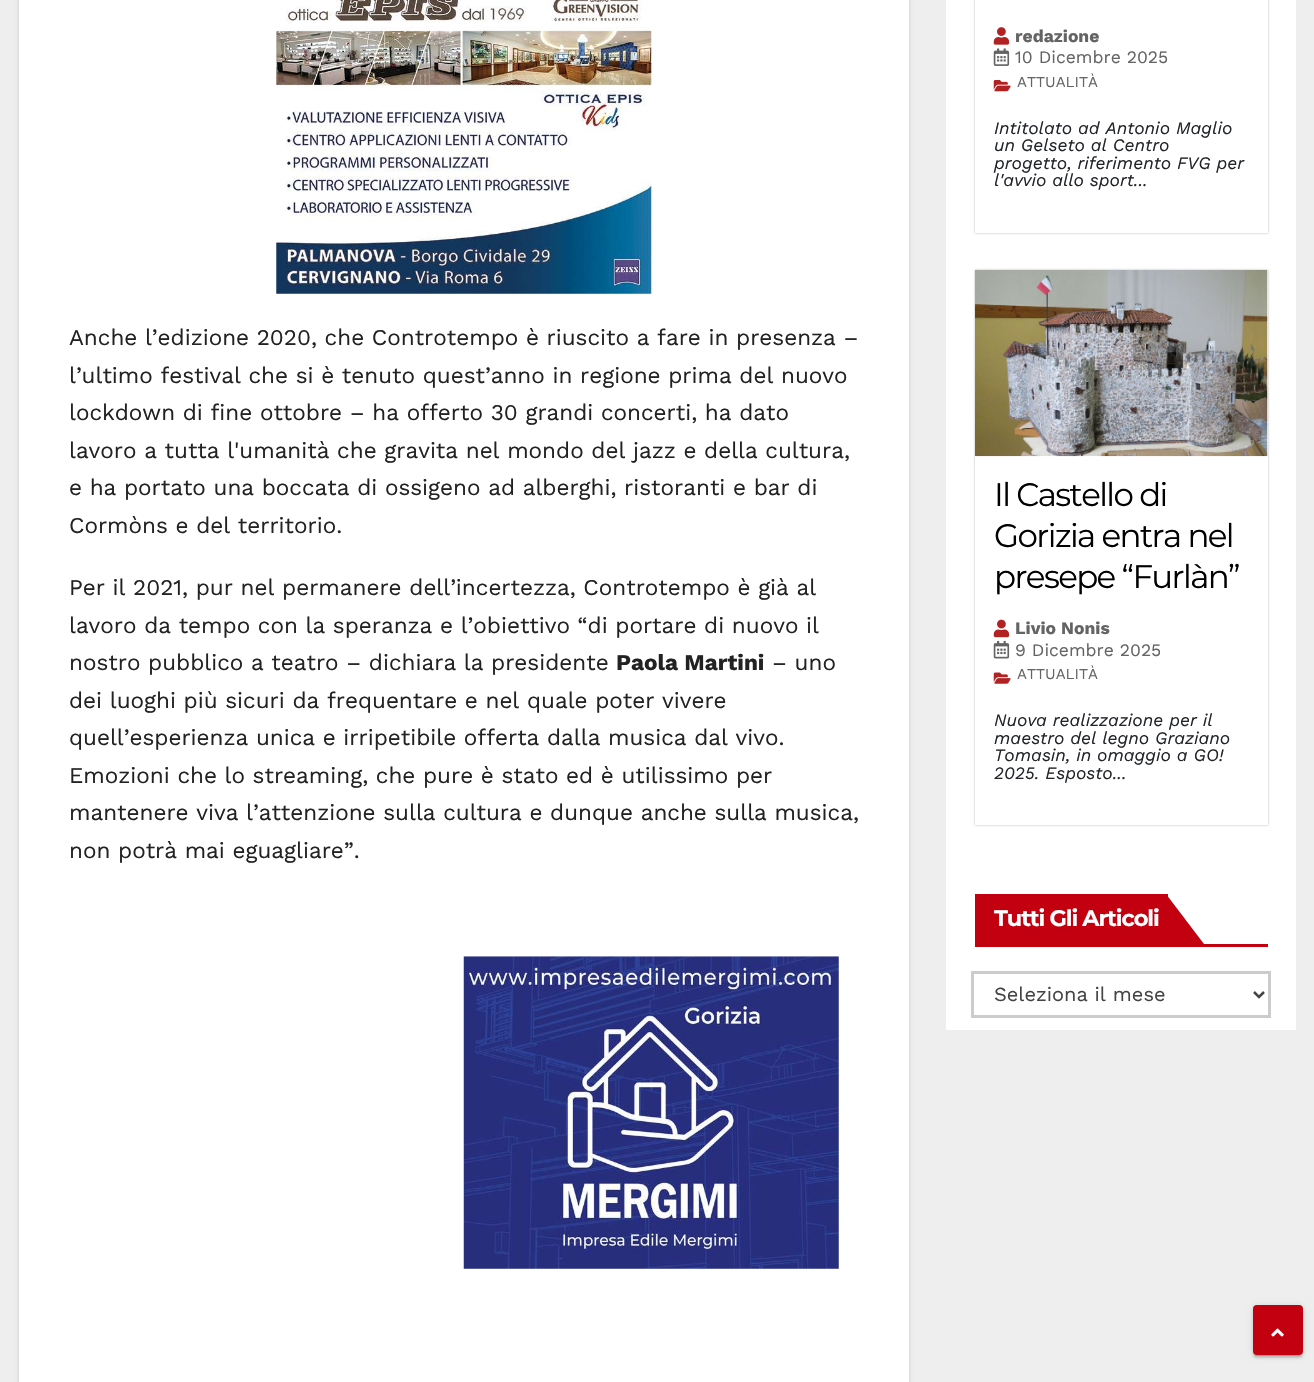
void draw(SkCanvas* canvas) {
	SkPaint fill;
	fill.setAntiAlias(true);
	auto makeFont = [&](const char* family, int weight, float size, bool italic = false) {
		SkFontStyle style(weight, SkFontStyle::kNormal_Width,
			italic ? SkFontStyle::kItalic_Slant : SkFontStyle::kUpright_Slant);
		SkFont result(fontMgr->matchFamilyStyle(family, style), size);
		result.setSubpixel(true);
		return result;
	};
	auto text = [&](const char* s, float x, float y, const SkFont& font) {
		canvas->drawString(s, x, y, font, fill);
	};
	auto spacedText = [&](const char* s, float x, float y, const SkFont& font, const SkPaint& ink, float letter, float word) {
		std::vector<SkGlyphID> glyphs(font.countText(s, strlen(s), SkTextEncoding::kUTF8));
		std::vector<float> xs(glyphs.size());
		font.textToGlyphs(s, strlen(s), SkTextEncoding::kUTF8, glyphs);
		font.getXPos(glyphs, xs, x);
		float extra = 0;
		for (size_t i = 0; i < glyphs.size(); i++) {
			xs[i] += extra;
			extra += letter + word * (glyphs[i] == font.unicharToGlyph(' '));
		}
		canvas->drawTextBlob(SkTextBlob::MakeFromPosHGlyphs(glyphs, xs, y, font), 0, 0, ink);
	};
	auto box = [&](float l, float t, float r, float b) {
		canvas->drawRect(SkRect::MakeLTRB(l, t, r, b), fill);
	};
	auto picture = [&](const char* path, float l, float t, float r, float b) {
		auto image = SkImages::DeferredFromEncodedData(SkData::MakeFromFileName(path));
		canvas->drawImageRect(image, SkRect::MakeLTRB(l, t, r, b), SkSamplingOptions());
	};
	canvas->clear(0xFFEEEEEE);
	fill.setColor(0x26000000);
	fill.setMaskFilter(SkMaskFilter::MakeBlur(kNormal_SkBlurStyle, 2));
	canvas->drawRect(SkRect::MakeLTRB(19, -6, 909, 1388), fill);
	fill.setMaskFilter(nullptr);
	fill.setColor(0xFFFFFFFF);
	box(19, 0, 909, 1382);
	picture("image0.png", 276, 0, 652, 294);
	picture("image1.png", 463, 956, 839, 1269);
	box(946, 0, 1296, 1030);
	fill.setColor(0x4D000000);
	fill.setMaskFilter(SkMaskFilter::MakeBlur(kNormal_SkBlurStyle, 1));
	canvas->drawRect(SkRect::MakeLTRB(975, -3, 1268, 233), fill);
	fill.setMaskFilter(nullptr);
	fill.setColor(0xFFFFFFFF);
	box(975, 0, 1268, 233);
	picture("image2.png", 993, 27, 1010, 45);
	picture("image3.png", 993, 48, 1010, 66);
	picture("image4.png", 993, 80, 1011, 92);
	fill.setColor(0x4D000000);
	fill.setMaskFilter(SkMaskFilter::MakeBlur(kNormal_SkBlurStyle, 1));
	canvas->drawRect(SkRect::MakeLTRB(975, 270, 1268, 825), fill);
	fill.setMaskFilter(nullptr);
	fill.setColor(0xFFFFFFFF);
	box(975, 270, 1268, 825);
	picture("image5.png", 975, 270, 1268, 457);
	picture("image6.png", 993, 619, 1010, 638);
	picture("image7.png", 993, 640, 1010, 659);
	picture("image8.png", 993, 672, 1011, 684);
	fill.setColor(0xFFC30010);
	box(975, 944, 1268, 947);
	box(975, 894, 1168, 944);
	canvas->drawPath(SkPathBuilder().moveTo(1166, 944).lineTo(1166, 894).lineTo(1204, 944).close().detach(), fill);
	fill.setStyle(SkPaint::kStroke_Style);
	fill.setStrokeWidth(3);
	fill.setColor(0xFFCCCCCC);
	canvas->drawRect(SkRect::MakeLTRB(972.5f, 972.5f, 1269.5f, 1016.5f), fill);
	fill.setStrokeWidth(2.5f);
	fill.setColor(0xFF444444);
	canvas->drawPath(SkPathBuilder().moveTo(1254, 992).lineTo(1259, 997).lineTo(1264, 992).detach(), fill);
	fill.setStyle(SkPaint::kFill_Style);
	fill.setColor(0x1F000000);
	fill.setMaskFilter(SkMaskFilter::MakeBlur(kNormal_SkBlurStyle, 3));
	canvas->drawRoundRect(SkRect::MakeLTRB(1253, 1306, 1303, 1356), 4, 4, fill);
	fill.setMaskFilter(nullptr);
	fill.setColor(0x33000000);
	fill.setMaskFilter(SkMaskFilter::MakeBlur(kNormal_SkBlurStyle, 0.5f));
	canvas->drawRoundRect(SkRect::MakeLTRB(1255, 1311, 1300, 1356), 1, 1, fill);
	fill.setMaskFilter(nullptr);
	fill.setColor(0x24000000);
	fill.setMaskFilter(SkMaskFilter::MakeBlur(kNormal_SkBlurStyle, 1));
	canvas->drawRoundRect(SkRect::MakeLTRB(1253, 1308, 1303, 1358), 4, 4, fill);
	fill.setMaskFilter(nullptr);
	fill.setColor(0xFFC30010);
	canvas->drawRoundRect(SkRect::MakeLTRB(1254.5f, 1306.5f, 1301.5f, 1353.5f), 2.5f, 2.5f, fill);
	fill.setStyle(SkPaint::kStroke_Style);
	fill.setStrokeWidth(3);
	canvas->drawRoundRect(SkRect::MakeLTRB(1254.5f, 1306.5f, 1301.5f, 1353.5f), 2.5f, 2.5f, fill);
	picture("image9.png", 1271, 1328, 1284, 1337);
	auto font1 = makeFont("Work Sans", 400, 22.5f);
	fill.setStyle(SkPaint::kFill_Style);
	fill.setColor(0xFF222222);
	text("Anche l’edizione 2020, che Controtempo è riuscito a fare in presenza –", 69, 345, font1);
	text("l’ultimo festival che si è tenuto quest’anno in regione prima del nuovo", 69, 383, font1);
	text("lockdown di fine ottobre – ha offerto 30 grandi concerti, ha dato", 69, 420, font1);
	text("lavoro a tutta l'umanità che gravita nel mondo del jazz e della cultura,", 69, 458, font1);
	text("e ha portato una boccata di ossigeno ad alberghi, ristoranti e bar di", 69, 495, font1);
	text("Cormòns e del territorio.", 69, 533, font1);
	text("Per il 2021, pur nel permanere dell’incertezza, Controtempo è già al", 69, 595, font1);
	text("lavoro da tempo con la speranza e l’obiettivo “di portare di nuovo il", 69, 633, font1);
	text("nostro pubblico a teatro – dichiara la presidente", 69, 670, font1);
	auto font2 = makeFont("Work Sans", 700, 22.5f);
	text("Paola Martini", 616, 670, font2);
	text("– uno", 772, 670, font1);
	text("dei luoghi più sicuri da frequentare e nel quale poter vivere", 69, 708, font1);
	text("quell’esperienza unica e irripetibile offerta dalla musica dal vivo.", 69, 745, font1);
	text("Emozioni che lo streaming, che pure è stato ed è utilissimo per", 69, 783, font1);
	text("mantenere viva l’attenzione sulla cultura e dunque anche sulla musica,", 69, 820, font1);
	text("non potrà mai eguagliare”.", 69, 858, font1);
	auto font3 = makeFont("Work Sans", 700, 17.5f);
	fill.setColor(0xFF646464);
	text("redazione", 1015, 42, font3);
	auto font4 = makeFont("Work Sans", 400, 17.5f);
	text("10 Dicembre 2025", 1015, 63, font4);
	auto font5 = makeFont("Work Sans", 400, 15);
	text("ATTUALITÀ", 1017, 87, font5);
	auto font6 = makeFont("Work Sans", 400, 17.5f, true);
	fill.setColor(0xFF212529);
	text("Intitolato ad Antonio Maglio", 994, 134, font6);
	text("un Gelseto al Centro", 994, 151, font6);
	text("progetto, riferimento FVG per", 994, 169, font6);
	text("l'avvio allo sport...", 994, 186, font6);
	auto font7 = makeFont("Montserrat", 100, 32.5f);
	fill.setColor(0xFF000000);
	spacedText("Il Castello di", 994, 506, font7, fill, -1.6f, 0);
	spacedText("Gorizia entra nel", 994, 547, font7, fill, -1.6f, 0);
	spacedText("presepe “Furlàn”", 994, 588, font7, fill, -1.6f, 0);
	fill.setColor(0xFF646464);
	text("Livio Nonis", 1015, 634, font3);
	text("9 Dicembre 2025", 1015, 656, font4);
	text("ATTUALITÀ", 1017, 679, font5);
	fill.setColor(0xFF212529);
	text("Nuova realizzazione per il", 994, 726, font6);
	text("maestro del legno Graziano", 994, 744, font6);
	text("Tomasin, in omaggio a GO!", 994, 761, font6);
	text("2025. Esposto...", 994, 779, font6);
	auto font8 = makeFont("Montserrat", 700, 22.5f);
	fill.setColor(0xFFFFFFFF);
	spacedText("Tutti Gli Articoli", 994, 926, font8, fill, -1.1f, 0);
	auto font9 = makeFont("Work Sans", 400, 20);
	fill.setColor(0xFF444444);
	text("Seleziona il mese", 994, 1001, font9);
}
